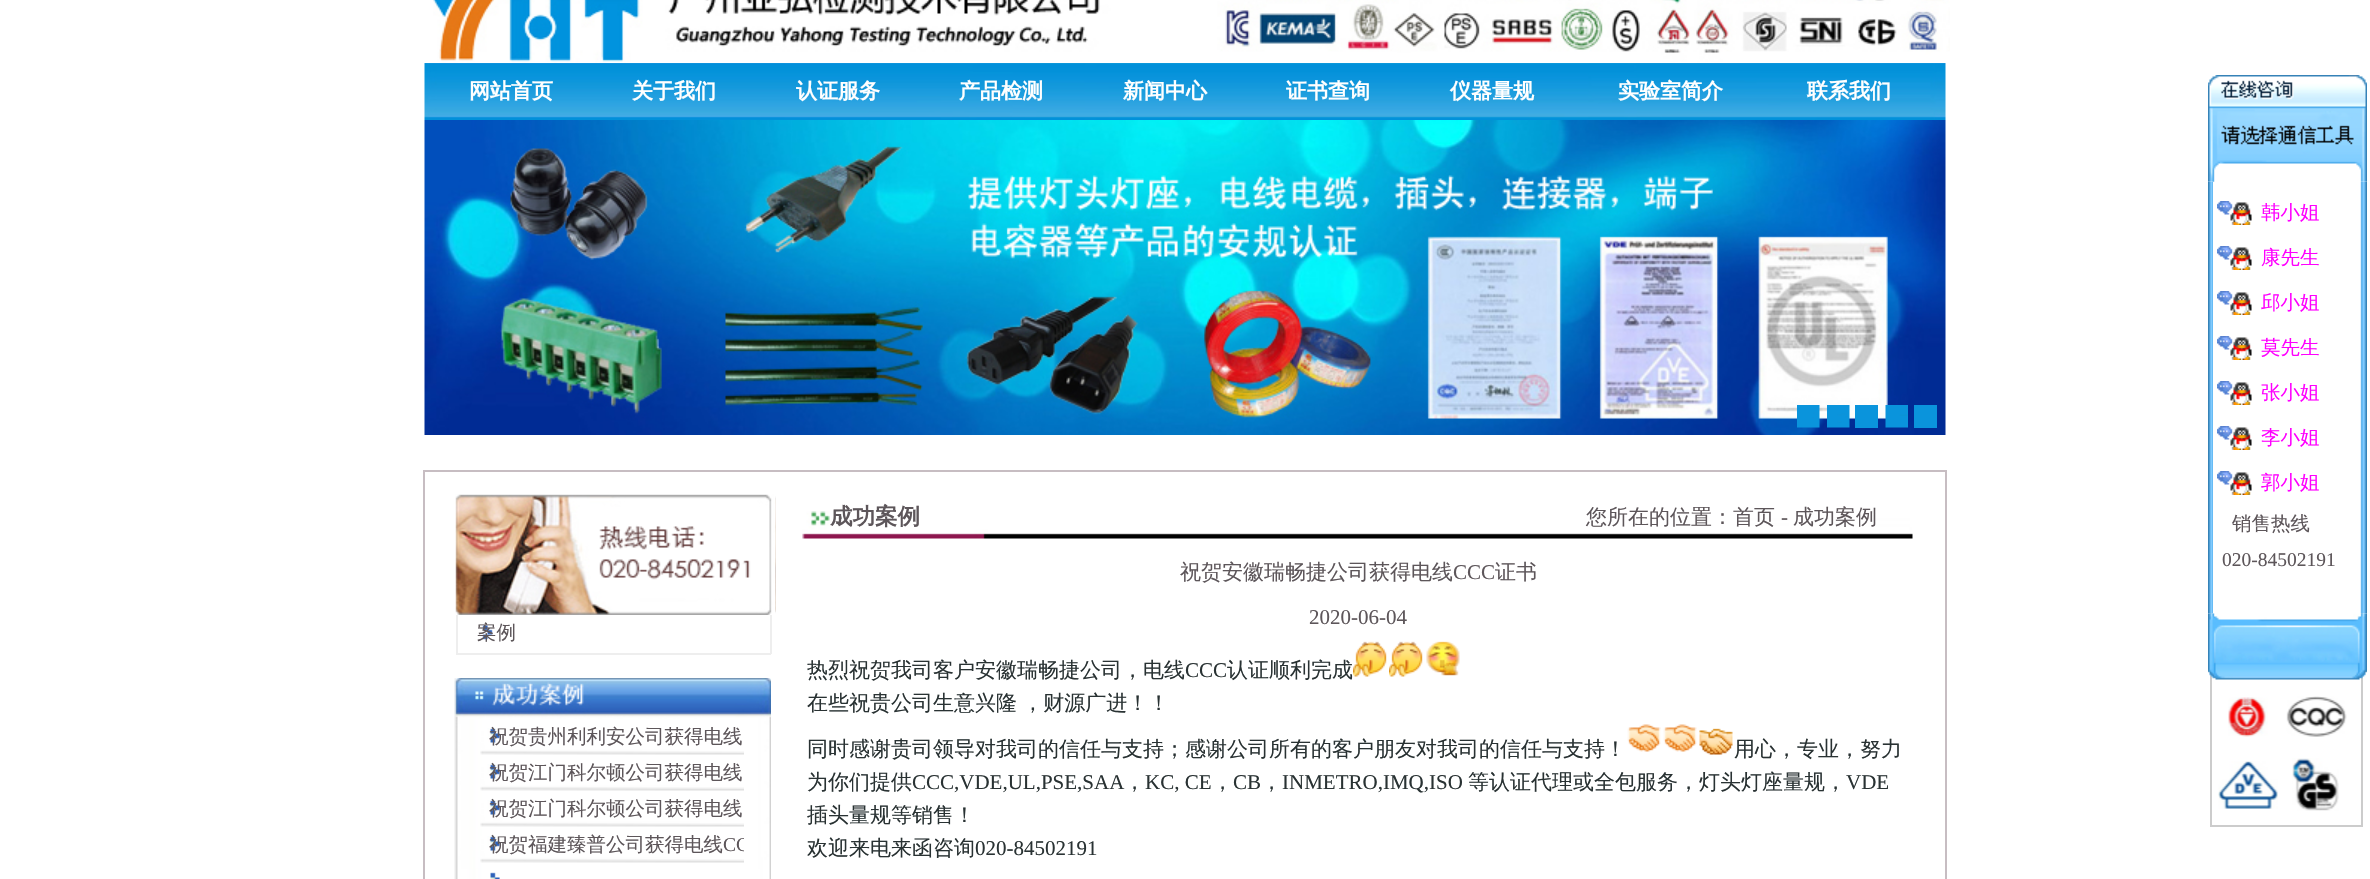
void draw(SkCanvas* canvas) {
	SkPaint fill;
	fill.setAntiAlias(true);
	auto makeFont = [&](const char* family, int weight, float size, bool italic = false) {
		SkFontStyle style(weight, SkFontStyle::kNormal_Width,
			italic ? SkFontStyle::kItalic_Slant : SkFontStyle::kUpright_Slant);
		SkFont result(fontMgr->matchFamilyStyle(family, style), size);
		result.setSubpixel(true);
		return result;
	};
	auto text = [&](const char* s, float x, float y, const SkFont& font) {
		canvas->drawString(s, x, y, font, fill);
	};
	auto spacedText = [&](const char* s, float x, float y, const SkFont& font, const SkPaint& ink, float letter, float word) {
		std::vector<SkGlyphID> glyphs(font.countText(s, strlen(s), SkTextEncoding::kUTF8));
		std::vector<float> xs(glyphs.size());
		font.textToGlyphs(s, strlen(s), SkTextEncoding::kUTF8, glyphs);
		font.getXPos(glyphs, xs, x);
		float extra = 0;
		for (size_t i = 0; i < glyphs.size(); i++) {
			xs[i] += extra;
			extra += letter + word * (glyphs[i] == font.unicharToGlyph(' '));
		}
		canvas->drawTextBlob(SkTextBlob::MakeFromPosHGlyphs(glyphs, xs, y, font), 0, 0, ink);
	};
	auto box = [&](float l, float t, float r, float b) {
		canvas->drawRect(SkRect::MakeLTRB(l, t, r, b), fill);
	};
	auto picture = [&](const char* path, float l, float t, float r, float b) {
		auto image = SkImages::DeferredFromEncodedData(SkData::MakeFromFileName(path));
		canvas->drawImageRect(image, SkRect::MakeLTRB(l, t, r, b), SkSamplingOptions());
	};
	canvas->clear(0xFFFFFFFF);
	picture("image0.png", 433, 0, 1950, 63);
	picture("image1.png", 424, 63, 1946, 120);
	picture("image2.png", 424, 120, 1946, 435);
	picture("image3.png", 1797, 405, 1820, 428);
	picture("image4.png", 1827, 405, 1850, 428);
	fill.setColor(0xFF0A94DC);
	box(1855, 405, 1878, 428);
	picture("image5.png", 1885, 405, 1908, 428);
	box(1914, 405, 1937, 428);
	fill.setStyle(SkPaint::kStroke_Style);
	fill.setStrokeWidth(2);
	fill.setColor(0xFFCCCCCC);
	canvas->drawRect(SkRect::MakeLTRB(2211, 543, 2362, 826), fill);
	picture("image7.png", 2208, 181, 2367, 614);
	picture("image6.png", 2208, 75, 2367, 182);
	fill.setStyle(SkPaint::kFill_Style);
	fill.setColor(0xFFFFFFFF);
	box(2213, 182, 2215, 614);
	picture("image8.png", 2217, 201, 2252, 225);
	picture("image8.png", 2217, 246, 2252, 270);
	picture("image8.png", 2217, 291, 2252, 315);
	picture("image8.png", 2217, 336, 2252, 360);
	picture("image8.png", 2217, 381, 2252, 405);
	picture("image8.png", 2217, 426, 2252, 450);
	picture("image8.png", 2217, 471, 2252, 495);
	picture("image9.png", 2208, 613, 2367, 680);
	picture("image10.png", 2228, 697, 2268, 737);
	picture("image11.png", 2286, 696, 2347, 737);
	picture("image12.png", 2218, 761, 2278, 809);
	picture("image13.png", 2292, 758, 2339, 811);
	fill.setStyle(SkPaint::kStroke_Style);
	fill.setColor(0xFFC7BDC2);
	canvas->drawRect(SkRect::MakeLTRB(424, 471, 1946, 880), fill);
	picture("image14.png", 455, 494, 776, 615);
	picture("image15.png", 482, 625, 508, 640);
	fill.setStyle(SkPaint::kFill_Style);
	fill.setColor(0xFFEEEEEE);
	box(770, 615, 772, 654);
	box(456, 653, 771, 655);
	box(456, 615, 458, 654);
	picture("image16.png", 454, 678, 771, 879);
	picture("image17.png", 480, 728, 744, 755);
	picture("image17.png", 480, 764, 744, 791);
	picture("image17.png", 480, 800, 744, 827);
	picture("image18.png", 480, 836, 744, 863);
	picture("image19.png", 490, 872, 500, 879);
	picture("image20.png", 802, 511, 1913, 539);
	picture("image21.png", 1353, 641, 1387, 677);
	picture("image22.png", 1389, 641, 1423, 677);
	picture("image23.png", 1426, 641, 1460, 676);
	picture("image24.png", 1627, 724, 1661, 752);
	picture("image24.png", 1663, 724, 1697, 752);
	picture("image25.png", 1699, 728, 1733, 755);
	auto font1 = makeFont("WenQuanYi Zen Hei", 700, 21);
	fill.setColor(0xFFFFFFFF);
	text("网站首页", 469, 98, font1);
	text("关于我们", 632, 98, font1);
	text("认证服务", 796, 98, font1);
	text("产品检测", 959, 98, font1);
	text("新闻中心", 1123, 98, font1);
	text("证书查询", 1286, 98, font1);
	text("仪器量规", 1450, 98, font1);
	text("实验室简介", 1618, 98, font1);
	text("联系我们", 1807, 98, font1);
	auto font2 = makeFont("WenQuanYi Zen Hei", 500, 19.5f);
	fill.setColor(0xFFFF00FF);
	text("韩小姐", 2261, 219, font2);
	text("康先生", 2261, 264, font2);
	text("邱小姐", 2261, 309, font2);
	text("莫先生", 2261, 354, font2);
	text("张小姐", 2261, 399, font2);
	text("李小姐", 2261, 444, font2);
	text("郭小姐", 2261, 489, font2);
	fill.setColor(0xFF5D565A);
	text("销售热线", 2232, 530, font2);
	auto font3 = makeFont("Liberation Serif", 400, 19.5f);
	text("020-84502191", 2222, 566, font3);
	text("案例", 477, 639, font2);
	text("祝贺贵州利利安公司获得电线", 489, 743, font2);
	text("祝贺江门科尔顿公司获得电线", 489, 779, font2);
	text("祝贺江门科尔顿公司获得电线", 489, 815, font2);
	text("祝贺福建臻普公司获得电线", 489, 851, font2);
	canvas->save();
	canvas->clipRect(SkRect::MakeLTRB(474, 827, 744, 863));
	text("CC", 723, 851, font3);
	canvas->restore();
	auto font4 = makeFont("WenQuanYi Zen Hei", 700, 22.5f);
	text("成功案例", 830, 524, font4);
	auto font5 = makeFont("WenQuanYi Zen Hei", 500, 21);
	text("您所在的位置：首页", 1586, 524, font5);
	auto font6 = makeFont("Liberation Serif", 400, 21);
	text("-", 1781, 524, font6);
	text("成功案例", 1793, 524, font5);
	text("祝贺安徽瑞畅捷公司获得电线", 1180, 579, font5);
	text("CCC", 1453, 579, font6);
	text("证书", 1495, 579, font5);
	text("2020-06-04", 1309, 624, font6);
	fill.setColor(0xFF293233);
	text("热烈祝贺我司客户安徽瑞畅捷公司，电线", 807, 677, font5);
	text("CCC", 1185, 677, font6);
	text("认证顺利完成", 1227, 677, font5);
	spacedText("在些祝贵公司生意兴隆 ，财源广进！！", 807, 710, font5, fill, 0, -1);
	text("同时感谢贵司领导对我司的信任与支持；感谢公司所有的客户朋友对我司的信任与支持！", 807, 756, font5);
	text("用心，专业，努力", 1734, 756, font5);
	text("为你们提供", 807, 789, font5);
	text("CCC,VDE,UL,PSE,SAA", 912, 789, font6);
	text("，", 1124, 789, font5);
	text("KC, CE", 1145, 789, font6);
	text("，", 1212, 789, font5);
	text("CB", 1233, 789, font6);
	text("，", 1261, 789, font5);
	text("INMETRO,IMQ,ISO", 1282, 789, font6);
	text("等认证代理或全包服务，灯头灯座量规，", 1468, 789, font5);
	text("VDE", 1846, 789, font6);
	text("插头量规等销售！", 807, 822, font5);
	text("欢迎来电来函咨询", 807, 855, font5);
	text("020-84502191", 975, 855, font6);
}
